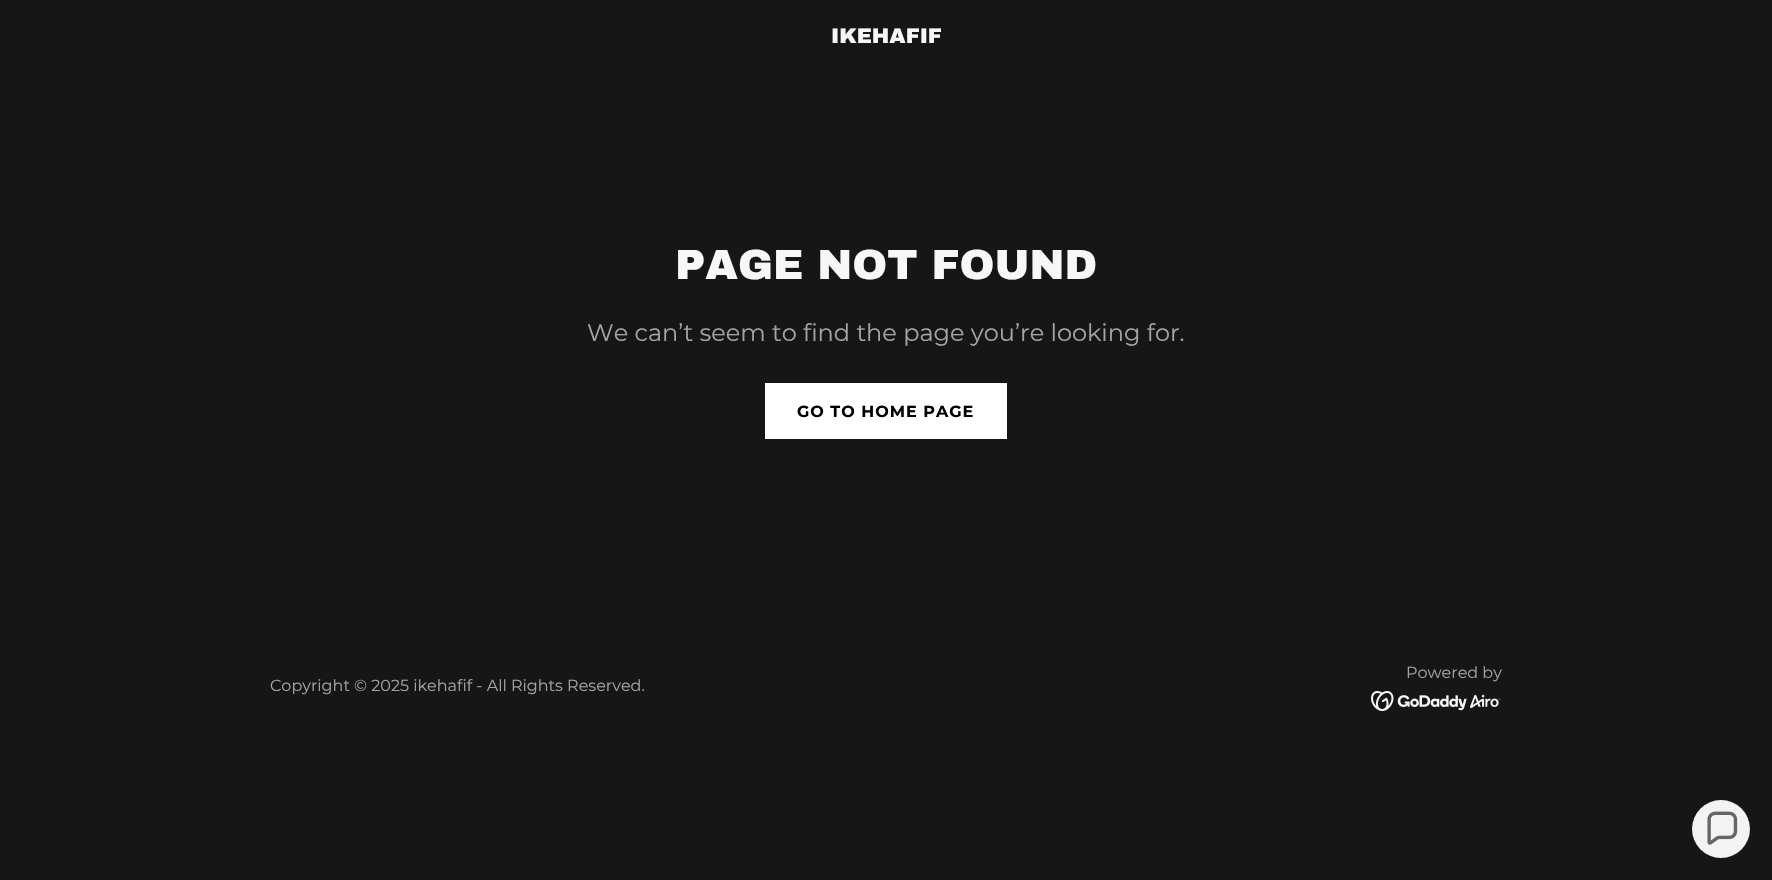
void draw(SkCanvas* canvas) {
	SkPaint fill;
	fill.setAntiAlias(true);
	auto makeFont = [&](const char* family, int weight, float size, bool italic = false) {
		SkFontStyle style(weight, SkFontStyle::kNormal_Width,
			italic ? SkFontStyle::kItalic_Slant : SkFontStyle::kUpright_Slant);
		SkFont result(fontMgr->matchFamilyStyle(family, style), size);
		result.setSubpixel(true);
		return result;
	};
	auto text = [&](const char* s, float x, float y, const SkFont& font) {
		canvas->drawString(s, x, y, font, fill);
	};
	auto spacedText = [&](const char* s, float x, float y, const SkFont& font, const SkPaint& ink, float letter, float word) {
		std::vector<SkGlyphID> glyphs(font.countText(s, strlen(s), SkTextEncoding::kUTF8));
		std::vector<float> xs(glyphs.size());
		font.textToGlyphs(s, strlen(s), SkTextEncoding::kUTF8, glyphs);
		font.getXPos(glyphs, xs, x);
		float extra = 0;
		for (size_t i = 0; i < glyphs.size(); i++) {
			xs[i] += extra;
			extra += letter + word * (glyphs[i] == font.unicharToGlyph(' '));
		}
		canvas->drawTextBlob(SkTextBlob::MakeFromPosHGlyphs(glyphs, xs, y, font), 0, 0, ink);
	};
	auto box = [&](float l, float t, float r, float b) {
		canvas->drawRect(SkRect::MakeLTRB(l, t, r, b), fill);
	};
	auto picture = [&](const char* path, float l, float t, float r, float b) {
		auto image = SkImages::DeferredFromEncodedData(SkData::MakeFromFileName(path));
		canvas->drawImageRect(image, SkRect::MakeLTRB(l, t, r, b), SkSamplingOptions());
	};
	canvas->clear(0xFF161616);
	fill.setColor(0xFFFFFFFF);
	box(765, 383, 1007, 439);
	picture("image0.png", 1371, 691, 1501, 711);
	fill.setColor(0xFFF3F3F3);
	canvas->drawCircle(1721, 829, 29, fill);
	picture("image1.png", 1707, 811, 1738, 845);
	auto font1 = makeFont("Archivo Black", 900, 21);
	fill.setColor(0xFFF7F7F7);
	text("IKEHAFIF", 831, 43, font1);
	auto font2 = makeFont("Archivo Black", 900, 42);
	text("PAGE NOT FOUND", 675, 279, font2);
	auto font3 = makeFont("Montserrat", 400, 24);
	fill.setColor(0xFFA4A4A4);
	text("We can’t seem to find the page you’re looking for.", 587, 341, font3);
	auto font4 = makeFont("Montserrat", 700, 16);
	fill.setColor(0xFF000000);
	spacedText("GO TO HOME PAGE", 797, 417, font4, fill, 1, 0);
	auto font5 = makeFont("Montserrat", 400, 16);
	fill.setColor(0xFFA4A4A4);
	text("Powered by", 1406, 678, font5);
	text("Copyright © 2025 ikehafif - All Rights Reserved.", 270, 691, font5);
}
